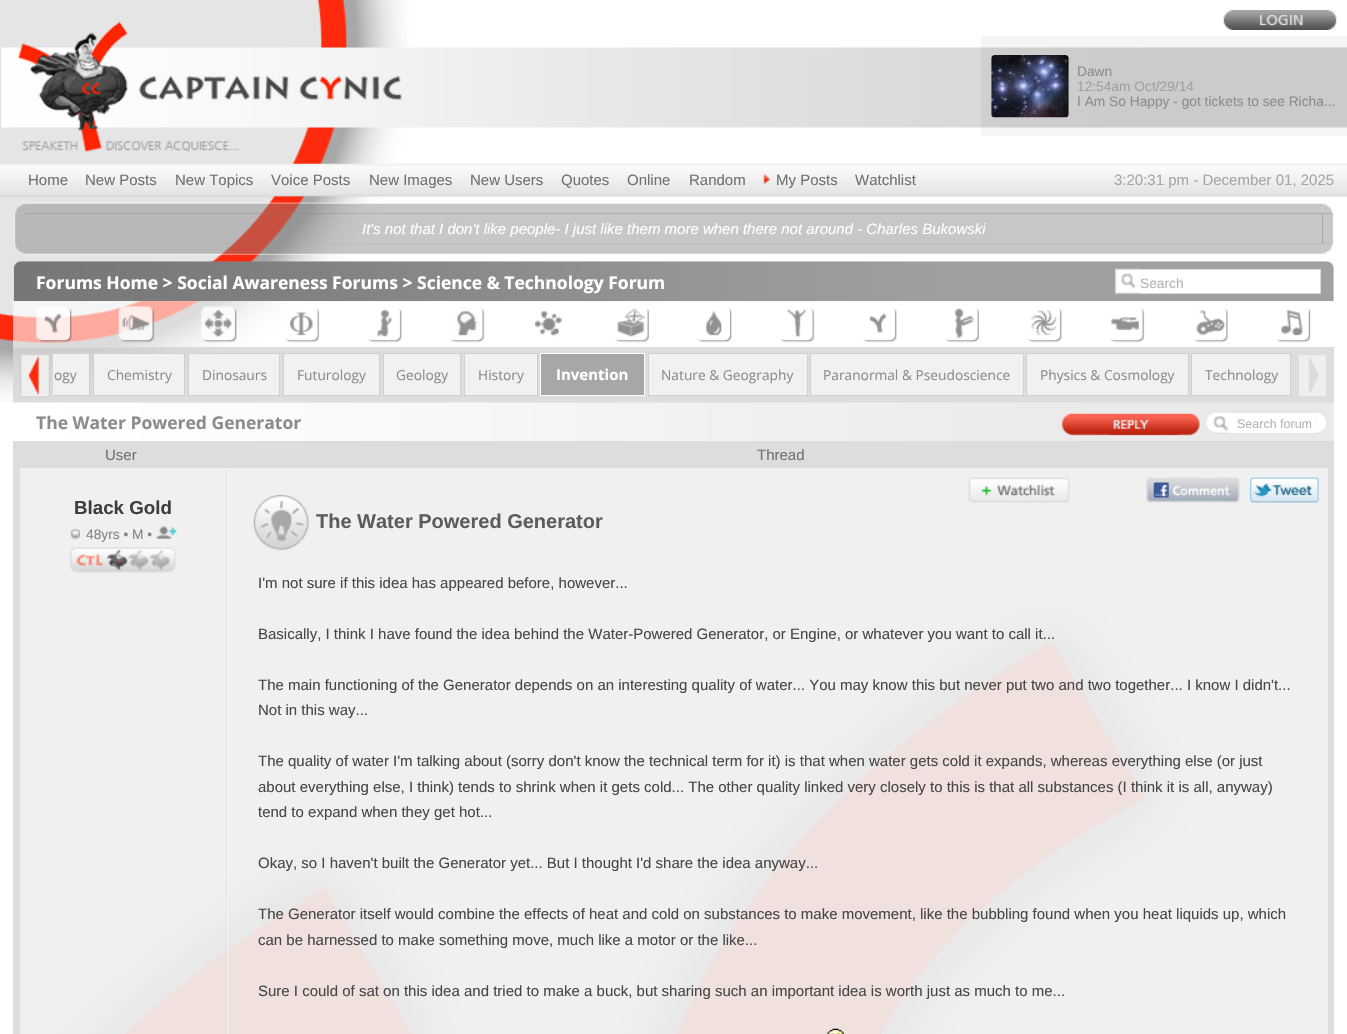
void draw(SkCanvas* canvas) {
	SkPaint fill;
	fill.setAntiAlias(true);
	auto makeFont = [&](const char* family, int weight, float size, bool italic = false) {
		SkFontStyle style(weight, SkFontStyle::kNormal_Width,
			italic ? SkFontStyle::kItalic_Slant : SkFontStyle::kUpright_Slant);
		SkFont result(fontMgr->matchFamilyStyle(family, style), size);
		result.setSubpixel(true);
		return result;
	};
	auto text = [&](const char* s, float x, float y, const SkFont& font) {
		canvas->drawString(s, x, y, font, fill);
	};
	auto box = [&](float l, float t, float r, float b) {
		canvas->drawRect(SkRect::MakeLTRB(l, t, r, b), fill);
	};
	auto picture = [&](const char* path, float l, float t, float r, float b) {
		auto image = SkImages::DeferredFromEncodedData(SkData::MakeFromFileName(path));
		canvas->drawImageRect(image, SkRect::MakeLTRB(l, t, r, b), SkSamplingOptions());
	};
	canvas->clear(0xFFFFFFFF);
	picture("image0.png", 41, 591, 1195, 1034);
	picture("image1.png", 0, 0, 1347, 402);
	picture("image2.png", 1326, 10, 1336, 30);
	picture("image3.png", 1223, 10, 1337, 30);
	fill.setColor(0x0A000000);
	box(981, 36, 1347, 136);
	picture("image4.png", 991, 55, 1069, 118);
	picture("image5.png", 0, 163, 1347, 198);
	picture("image6.png", 763, 173, 770, 184);
	picture("image10.png", 14, 213, 25, 244);
	picture("image7.png", 14, 202, 25, 214);
	picture("image8.png", 25, 202, 1323, 214);
	fill.setColor(0x70808080);
	box(25, 213, 1323, 244);
	box(1322, 213, 1333, 244);
	picture("image9.png", 1322, 203, 1333, 214);
	picture("image11.png", 14, 243, 25, 255);
	picture("image12.png", 25, 243, 1323, 255);
	picture("image13.png", 1322, 243, 1333, 254);
	picture("image14.png", 13, 261, 1334, 302);
	picture("image15.png", 1115, 268, 1140, 294);
	fill.setColor(0xFFFFFFFF);
	box(1140, 270, 1320, 293);
	fill.setColor(0xFFD9D9D9);
	box(1140, 269, 1321, 270);
	box(1320, 269, 1321, 294);
	box(1140, 293, 1321, 294);
	fill.setColor(0x99FFFFFF);
	box(13, 301, 322, 348);
	picture("image16.png", 36, 306, 72, 343);
	picture("image17.png", 118, 306, 155, 343);
	picture("image18.png", 201, 306, 237, 343);
	picture("image19.png", 285, 308, 320, 343);
	picture("image20.png", 367, 308, 402, 343);
	picture("image21.png", 450, 308, 485, 343);
	picture("image22.png", 534, 311, 563, 337);
	picture("image23.png", 615, 308, 650, 343);
	picture("image24.png", 697, 308, 732, 343);
	picture("image25.png", 780, 308, 815, 343);
	picture("image26.png", 862, 308, 897, 343);
	picture("image27.png", 945, 308, 980, 343);
	picture("image28.png", 1027, 308, 1062, 343);
	picture("image29.png", 1110, 308, 1145, 343);
	picture("image30.png", 1194, 308, 1229, 343);
	picture("image31.png", 1276, 308, 1311, 343);
	fill.setColor(0xD4D6D6D6);
	box(13, 347, 1334, 403);
	picture("image32.png", 20, 355, 50, 398);
	fill.setColor(0xFFF1F1F1);
	box(53, 354, 89, 395);
	canvas->save();
	canvas->clipRect(SkRect::MakeLTRB(53, 350, 1295, 400));
	fill.setStyle(SkPaint::kStroke_Style);
	fill.setStrokeWidth(1);
	fill.setColor(0xFFCFCFCF);
	canvas->drawRect(SkRect::MakeLTRB(16.5f, 353.5f, 89.5f, 395.5f), fill);
	canvas->restore();
	fill.setStyle(SkPaint::kFill_Style);
	fill.setColor(0xFFF1F1F1);
	canvas->drawRect(SkRect::MakeLTRB(93.5f, 353.5f, 184.5f, 395.5f), fill);
	fill.setStyle(SkPaint::kStroke_Style);
	fill.setColor(0xFFCFCFCF);
	canvas->drawRect(SkRect::MakeLTRB(93.5f, 353.5f, 184.5f, 395.5f), fill);
	fill.setStyle(SkPaint::kFill_Style);
	fill.setColor(0xFFF1F1F1);
	canvas->drawRect(SkRect::MakeLTRB(188.5f, 353.5f, 279.5f, 395.5f), fill);
	fill.setStyle(SkPaint::kStroke_Style);
	fill.setColor(0xFFCFCFCF);
	canvas->drawRect(SkRect::MakeLTRB(188.5f, 353.5f, 279.5f, 395.5f), fill);
	fill.setStyle(SkPaint::kFill_Style);
	fill.setColor(0xFFF1F1F1);
	canvas->drawRect(SkRect::MakeLTRB(283.5f, 353.5f, 379.5f, 395.5f), fill);
	fill.setStyle(SkPaint::kStroke_Style);
	fill.setColor(0xFFCFCFCF);
	canvas->drawRect(SkRect::MakeLTRB(283.5f, 353.5f, 379.5f, 395.5f), fill);
	fill.setStyle(SkPaint::kFill_Style);
	fill.setColor(0xFFF1F1F1);
	canvas->drawRect(SkRect::MakeLTRB(383.5f, 353.5f, 460.5f, 395.5f), fill);
	fill.setStyle(SkPaint::kStroke_Style);
	fill.setColor(0xFFCFCFCF);
	canvas->drawRect(SkRect::MakeLTRB(383.5f, 353.5f, 460.5f, 395.5f), fill);
	fill.setStyle(SkPaint::kFill_Style);
	fill.setColor(0xFFF1F1F1);
	canvas->drawRect(SkRect::MakeLTRB(464.5f, 353.5f, 537.5f, 395.5f), fill);
	fill.setStyle(SkPaint::kStroke_Style);
	fill.setColor(0xFFCFCFCF);
	canvas->drawRect(SkRect::MakeLTRB(464.5f, 353.5f, 537.5f, 395.5f), fill);
	fill.setStyle(SkPaint::kFill_Style);
	fill.setColor(0xFFA7A7A7);
	canvas->drawRect(SkRect::MakeLTRB(540.5f, 353.5f, 644.5f, 395.5f), fill);
	fill.setStyle(SkPaint::kStroke_Style);
	fill.setColor(0xFFFFFFFF);
	canvas->drawRect(SkRect::MakeLTRB(540.5f, 353.5f, 644.5f, 395.5f), fill);
	fill.setStyle(SkPaint::kFill_Style);
	fill.setColor(0xFFF1F1F1);
	canvas->drawRect(SkRect::MakeLTRB(648.5f, 353.5f, 807.5f, 395.5f), fill);
	fill.setStyle(SkPaint::kStroke_Style);
	fill.setColor(0xFFCFCFCF);
	canvas->drawRect(SkRect::MakeLTRB(648.5f, 353.5f, 807.5f, 395.5f), fill);
	fill.setStyle(SkPaint::kFill_Style);
	fill.setColor(0xFFF1F1F1);
	canvas->drawRect(SkRect::MakeLTRB(810.5f, 353.5f, 1023.5f, 395.5f), fill);
	fill.setStyle(SkPaint::kStroke_Style);
	fill.setColor(0xFFCFCFCF);
	canvas->drawRect(SkRect::MakeLTRB(810.5f, 353.5f, 1023.5f, 395.5f), fill);
	fill.setStyle(SkPaint::kFill_Style);
	fill.setColor(0xFFF1F1F1);
	canvas->drawRect(SkRect::MakeLTRB(1026.5f, 353.5f, 1188.5f, 395.5f), fill);
	fill.setStyle(SkPaint::kStroke_Style);
	fill.setColor(0xFFCFCFCF);
	canvas->drawRect(SkRect::MakeLTRB(1026.5f, 353.5f, 1188.5f, 395.5f), fill);
	fill.setStyle(SkPaint::kFill_Style);
	fill.setColor(0xFFF1F1F1);
	canvas->drawRect(SkRect::MakeLTRB(1191.5f, 353.5f, 1290.5f, 395.5f), fill);
	fill.setStyle(SkPaint::kStroke_Style);
	fill.setColor(0xFFCFCFCF);
	canvas->drawRect(SkRect::MakeLTRB(1191.5f, 353.5f, 1290.5f, 395.5f), fill);
	picture("image33.png", 1299, 355, 1326, 396);
	picture("image34.png", 13, 402, 1334, 442);
	picture("image35.png", 1061, 413, 1200, 436);
	picture("image36.png", 1205, 411, 1229, 434);
	fill.setStyle(SkPaint::kFill_Style);
	fill.setColor(0xFFFFFFFF);
	box(1229, 413, 1316, 433);
	fill.setColor(0xFFE4E4E4);
	box(1229, 411, 1316, 412);
	box(1229, 433, 1316, 434);
	picture("image37.png", 1316, 411, 1326, 434);
	fill.setColor(0xD4D6D6D6);
	box(13, 441, 1334, 1034);
	fill.setColor(0x8CFFFFFF);
	box(20, 468, 228, 1034);
	fill.setColor(0xFFE2E2E2);
	box(226, 469, 227, 1034);
	picture("image38.png", 70, 528, 80, 539);
	picture("image39.png", 156, 526, 177, 539);
	picture("image40.png", 70, 547, 176, 573);
	fill.setColor(0x8CFFFFFF);
	box(227, 468, 1328, 1034);
	picture("image41.png", 968, 477, 1070, 503);
	picture("image42.png", 1146, 477, 1240, 503);
	picture("image43.png", 1250, 477, 1319, 503);
	picture("image44.png", 253, 494, 309, 551);
	picture("image45.png", 827, 1028, 844, 1034);
	auto font1 = makeFont("Liberation Sans", 400, 13.75f);
	fill.setColor(0xFF8C8C8C);
	text("Dawn", 1077, 76, font1);
	fill.setColor(0xFFA0A0A0);
	text("12:54am Oct/29/14", 1077, 91, font1);
	fill.setColor(0xFF8C8C8C);
	text("I Am So Happy - got tickets to see Richa...", 1077, 106, font1);
	auto font2 = makeFont("Liberation Sans", 400, 15);
	fill.setColor(0xFF717171);
	text("Home", 28, 185, font2);
	text("New Posts", 85, 185, font2);
	text("New Topics", 175, 185, font2);
	text("Voice Posts", 271, 185, font2);
	text("New Images", 369, 185, font2);
	text("New Users", 470, 185, font2);
	text("Quotes", 561, 185, font2);
	text("Online", 627, 185, font2);
	text("Random", 689, 185, font2);
	text("My Posts", 776, 185, font2);
	text("Watchlist", 855, 185, font2);
	fill.setColor(0xFFA6A6A6);
	text("3:20:31 pm - December 01, 2025", 1114, 185, font2);
	auto font3 = makeFont("Liberation Sans", 400, 15, true);
	fill.setColor(0xFFFFFFFF);
	text("It's not that I don't like people- I just like them more when there not around - Charles Bukowski", 362, 234, font3);
	auto font4 = makeFont("Open Sans", 700, 17.5f);
	text("Forums Home > Social Awareness Forums > Science & Technology Forum", 36, 289, font4);
	fill.setColor(0xFFB7B3BA);
	text("Search", 1140, 288, font1);
	auto font5 = makeFont("Open Sans", 400, 13.75f);
	fill.setColor(0xFF8C8C8C);
	text("ogy", 54, 380, font5);
	text("Chemistry", 107, 380, font5);
	text("Dinosaurs", 202, 380, font5);
	text("Futurology", 297, 380, font5);
	text("Geology", 396, 380, font5);
	text("History", 478, 380, font5);
	auto font6 = makeFont("Open Sans", 700, 15);
	fill.setColor(0xFFFFFFFF);
	text("Invention", 556, 380, font6);
	fill.setColor(0xFF8C8C8C);
	text("Nature & Geography", 661, 380, font5);
	text("Paranormal & Pseudoscience", 823, 380, font5);
	text("Physics & Cosmology", 1040, 380, font5);
	text("Technology", 1205, 380, font5);
	text("The Water Powered Generator", 36, 429, font4);
	auto font7 = makeFont("Liberation Sans", 400, 12.5f);
	fill.setColor(0xFFB7B3BA);
	text("Search forum", 1237, 428, font7);
	fill.setColor(0xFF717171);
	text("User", 105, 460, font2);
	text("Thread", 757, 460, font2);
	auto font8 = makeFont("Liberation Sans", 700, 18.75f);
	fill.setColor(0xFF3F3F3F);
	text("Black Gold", 74, 514, font8);
	fill.setColor(0xFF848484);
	text("48yrs • M •", 86, 539, font1);
	auto font9 = makeFont("Liberation Sans", 700, 20);
	fill.setColor(0xFF5C5C5C);
	text("The Water Powered Generator", 316, 528, font9);
	fill.setColor(0xFF474747);
	text("I'm not sure if this idea has appeared before, however...", 258, 588, font2);
	text("Basically, I think I have found the idea behind the Water-Powered Generator, or Engine, or whatever you want to call it...", 258, 639, font2);
	text("The main functioning of the Generator depends on an interesting quality of water... You may know this but never put two and two together... I know I didn't...", 258, 690, font2);
	text("Not in this way...", 258, 715, font2);
	text("The quality of water I'm talking about (sorry don't know the technical term for it) is that when water gets cold it expands, whereas everything else (or just", 258, 766, font2);
	text("about everything else, I think) tends to shrink when it gets cold... The other quality linked very closely to this is that all substances (I think it is all, anyway)", 258, 792, font2);
	text("tend to expand when they get hot...", 258, 817, font2);
	text("Okay, so I haven't built the Generator yet... But I thought I'd share the idea anyway...", 258, 868, font2);
	text("The Generator itself would combine the effects of heat and cold on substances to make movement, like the bubbling found when you heat liquids up, which", 258, 919, font2);
	text("can be harnessed to make something move, much like a motor or the like...", 258, 945, font2);
	text("Sure I could of sat on this idea and tried to make a buck, but sharing such an important idea is worth just as much to me...", 258, 996, font2);
}
